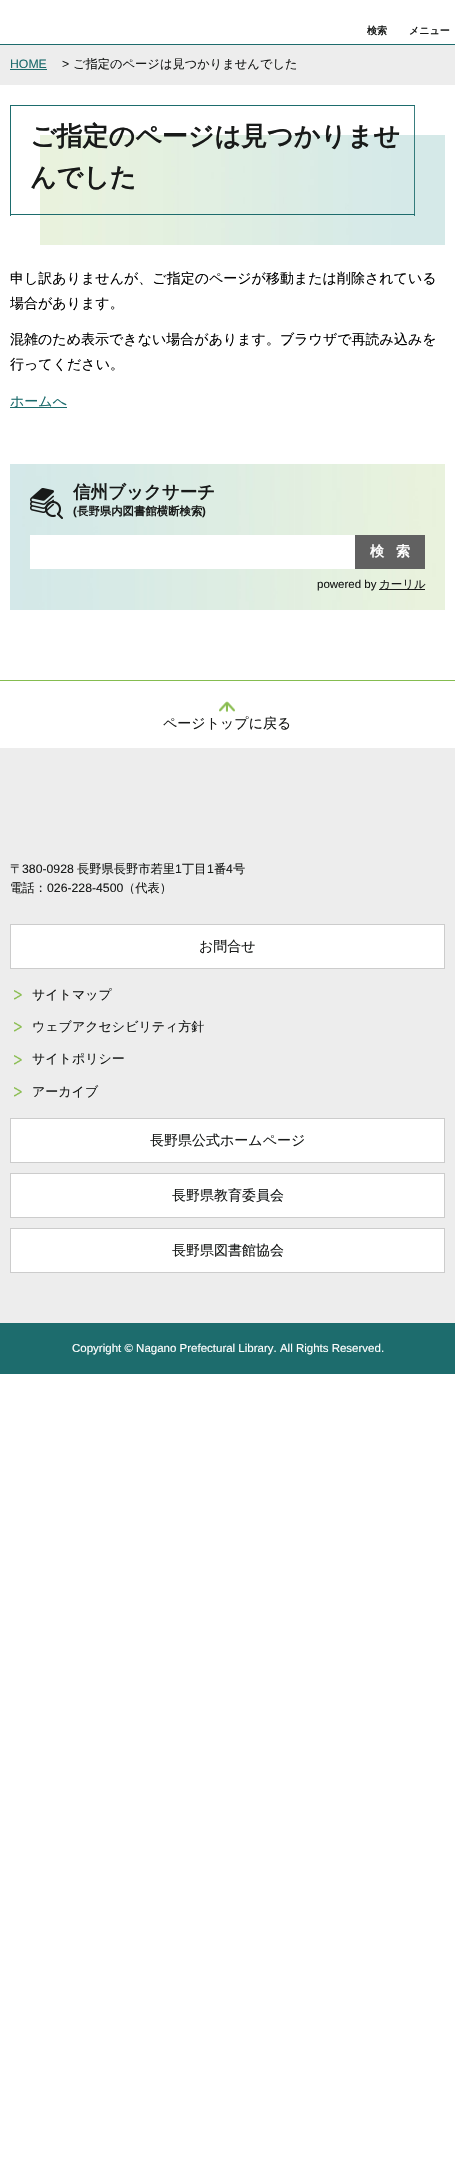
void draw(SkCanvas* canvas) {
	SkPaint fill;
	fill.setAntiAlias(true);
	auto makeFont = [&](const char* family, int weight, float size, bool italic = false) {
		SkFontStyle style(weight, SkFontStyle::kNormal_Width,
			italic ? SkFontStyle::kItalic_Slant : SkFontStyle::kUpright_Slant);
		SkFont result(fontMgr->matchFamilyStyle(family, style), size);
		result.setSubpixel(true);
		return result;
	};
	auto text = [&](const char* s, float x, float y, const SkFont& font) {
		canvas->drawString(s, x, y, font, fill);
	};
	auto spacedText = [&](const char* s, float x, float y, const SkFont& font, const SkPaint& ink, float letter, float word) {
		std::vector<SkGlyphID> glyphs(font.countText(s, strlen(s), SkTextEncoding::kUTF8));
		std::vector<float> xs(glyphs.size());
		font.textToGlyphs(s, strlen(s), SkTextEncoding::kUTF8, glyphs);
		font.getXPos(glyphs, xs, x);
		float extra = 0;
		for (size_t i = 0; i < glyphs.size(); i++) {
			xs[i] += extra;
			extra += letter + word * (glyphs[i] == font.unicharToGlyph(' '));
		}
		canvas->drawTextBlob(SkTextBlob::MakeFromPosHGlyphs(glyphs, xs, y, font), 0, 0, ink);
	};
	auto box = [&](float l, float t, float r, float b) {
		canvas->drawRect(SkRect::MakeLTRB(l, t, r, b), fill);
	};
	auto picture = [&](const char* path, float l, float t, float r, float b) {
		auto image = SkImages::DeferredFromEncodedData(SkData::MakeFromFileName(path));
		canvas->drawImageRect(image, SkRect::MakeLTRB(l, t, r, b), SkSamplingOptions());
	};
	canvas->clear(0xFFFFFFFF);
	fill.setColor(0xFF1D6C6D);
	box(0, 44, 455, 45);
	fill.setColor(0xFFEDEDED);
	box(0, 45, 455, 85);
	fill.setColor(0xFF1D6C6D);
	box(10, 69, 47, 70);
	picture("image0.png", 10, 106, 445, 245);
	box(10, 105, 415, 106);
	box(10, 214, 415, 215);
	box(10, 407, 67, 408);
	picture("image1.png", 10, 464, 445, 610);
	picture("image2.png", 30, 488, 63, 519);
	fill.setColor(0xFFFFFFFF);
	box(30, 535, 355, 569);
	fill.setColor(0xFF616161);
	box(355, 535, 425, 569);
	fill.setColor(0xFF181A19);
	box(379, 589, 425, 590);
	fill.setColor(0xFF85BC50);
	box(0, 680, 455, 681);
	picture("image3.png", 219, 701, 235, 712);
	fill.setColor(0xFFEDEDED);
	box(0, 748, 455, 1323);
	fill.setColor(0xFFFFFFFF);
	canvas->drawRect(SkRect::MakeLTRB(10.5f, 924.5f, 444.5f, 968.5f), fill);
	fill.setStyle(SkPaint::kStroke_Style);
	fill.setStrokeWidth(1);
	fill.setColor(0xFFCCCCCC);
	canvas->drawRect(SkRect::MakeLTRB(10.5f, 924.5f, 444.5f, 968.5f), fill);
	picture("image4.png", 14, 990, 22, 1000);
	picture("image4.png", 14, 1022, 22, 1032);
	picture("image4.png", 14, 1055, 22, 1065);
	picture("image4.png", 14, 1087, 22, 1097);
	fill.setStyle(SkPaint::kFill_Style);
	fill.setColor(0xFFFFFFFF);
	canvas->drawRect(SkRect::MakeLTRB(10.5f, 1118.5f, 444.5f, 1162.5f), fill);
	fill.setStyle(SkPaint::kStroke_Style);
	fill.setColor(0xFFCCCCCC);
	canvas->drawRect(SkRect::MakeLTRB(10.5f, 1118.5f, 444.5f, 1162.5f), fill);
	fill.setStyle(SkPaint::kFill_Style);
	fill.setColor(0xFFFFFFFF);
	canvas->drawRect(SkRect::MakeLTRB(10.5f, 1173.5f, 444.5f, 1217.5f), fill);
	fill.setStyle(SkPaint::kStroke_Style);
	fill.setColor(0xFFCCCCCC);
	canvas->drawRect(SkRect::MakeLTRB(10.5f, 1173.5f, 444.5f, 1217.5f), fill);
	fill.setStyle(SkPaint::kFill_Style);
	fill.setColor(0xFFFFFFFF);
	canvas->drawRect(SkRect::MakeLTRB(10.5f, 1228.5f, 444.5f, 1272.5f), fill);
	fill.setStyle(SkPaint::kStroke_Style);
	fill.setColor(0xFFCCCCCC);
	canvas->drawRect(SkRect::MakeLTRB(10.5f, 1228.5f, 444.5f, 1272.5f), fill);
	fill.setStyle(SkPaint::kFill_Style);
	fill.setColor(0xFF1D6C6D);
	box(0, 1323, 455, 1374);
	auto font1 = makeFont("WenQuanYi Zen Hei", 700, 10);
	fill.setColor(0xFF181A19);
	text("検索", 367, 34, font1);
	text("メニュー", 409, 34, font1);
	auto font2 = makeFont("Liberation Sans", 400, 12.25f);
	fill.setColor(0xFF1D6C6D);
	text("HOME", 10, 68, font2);
	fill.setColor(0xFF181A19);
	text(">", 62, 68, font2);
	auto font3 = makeFont("WenQuanYi Zen Hei", 500, 12.25f);
	text("ご指定のページは見つかりませんでした", 73, 68, font3);
	auto font4 = makeFont("WenQuanYi Zen Hei", 700, 26);
	text("ご指定のページは見つかりませ", 30, 145, font4);
	text("んでした", 30, 186, font4);
	auto font5 = makeFont("WenQuanYi Zen Hei", 500, 14);
	fill.setColor(0xFF000000);
	text("申し訳ありませんが、ご指定のページが移動または削除されている", 10, 283, font5);
	text("場合があります。", 10, 308, font5);
	text("混雑のため表示できない場合があります。ブラウザで再読み込みを", 10, 344, font5);
	text("行ってください。", 10, 369, font5);
	fill.setColor(0xFF1D6C6D);
	text("ホームへ", 10, 406, font5);
	auto font6 = makeFont("WenQuanYi Zen Hei", 700, 17.5f);
	fill.setColor(0xFF181A19);
	text("信州ブックサーチ", 73, 498, font6);
	auto font7 = makeFont("Liberation Sans", 700, 11.4f);
	text("(", 73, 515, font7);
	auto font8 = makeFont("WenQuanYi Zen Hei", 700, 11.4f);
	text("長野県内図書館横断検索", 77, 515, font8);
	text(")", 202, 515, font7);
	auto font9 = makeFont("WenQuanYi Zen Hei", 700, 14);
	fill.setColor(0xFFFFFFFF);
	spacedText("検索", 370, 556, font9, fill, 12, 0);
	auto font10 = makeFont("Liberation Sans", 400, 11.5f);
	fill.setColor(0xFF181A19);
	text("powered by", 317, 588, font10);
	auto font11 = makeFont("WenQuanYi Zen Hei", 500, 11.5f);
	text("カーリル", 379, 588, font11);
	text("ページトップに戻る", 163, 728, font5);
	text("〒", 10, 873, font3);
	text("380-0928", 22, 873, font2);
	text("長野県長野市若里", 77, 873, font3);
	text("1", 175, 873, font2);
	text("丁目", 182, 873, font3);
	text("1", 207, 873, font2);
	text("番", 214, 873, font3);
	text("4", 226, 873, font2);
	text("号", 233, 873, font3);
	text("電話：", 10, 892, font3);
	text("026-228-4500", 47, 892, font2);
	text("（代表）", 123, 892, font3);
	text("お問合せ", 199, 951, font5);
	auto font12 = makeFont("WenQuanYi Zen Hei", 500, 13);
	text("サイトマップ", 32, 999, font12);
	text("ウェブアクセシビリティ方針", 32, 1031, font12);
	text("サイトポリシー", 32, 1063, font12);
	text("アーカイブ", 32, 1096, font12);
	text("長野県公式ホームページ", 150, 1145, font5);
	text("長野県教育委員会", 172, 1200, font5);
	text("長野県図書館協会", 172, 1255, font5);
	fill.setColor(0xFFFFFFFF);
	text("Copyright © Nagano Prefectural Library. All Rights Reserved.", 72, 1352, font10);
}
